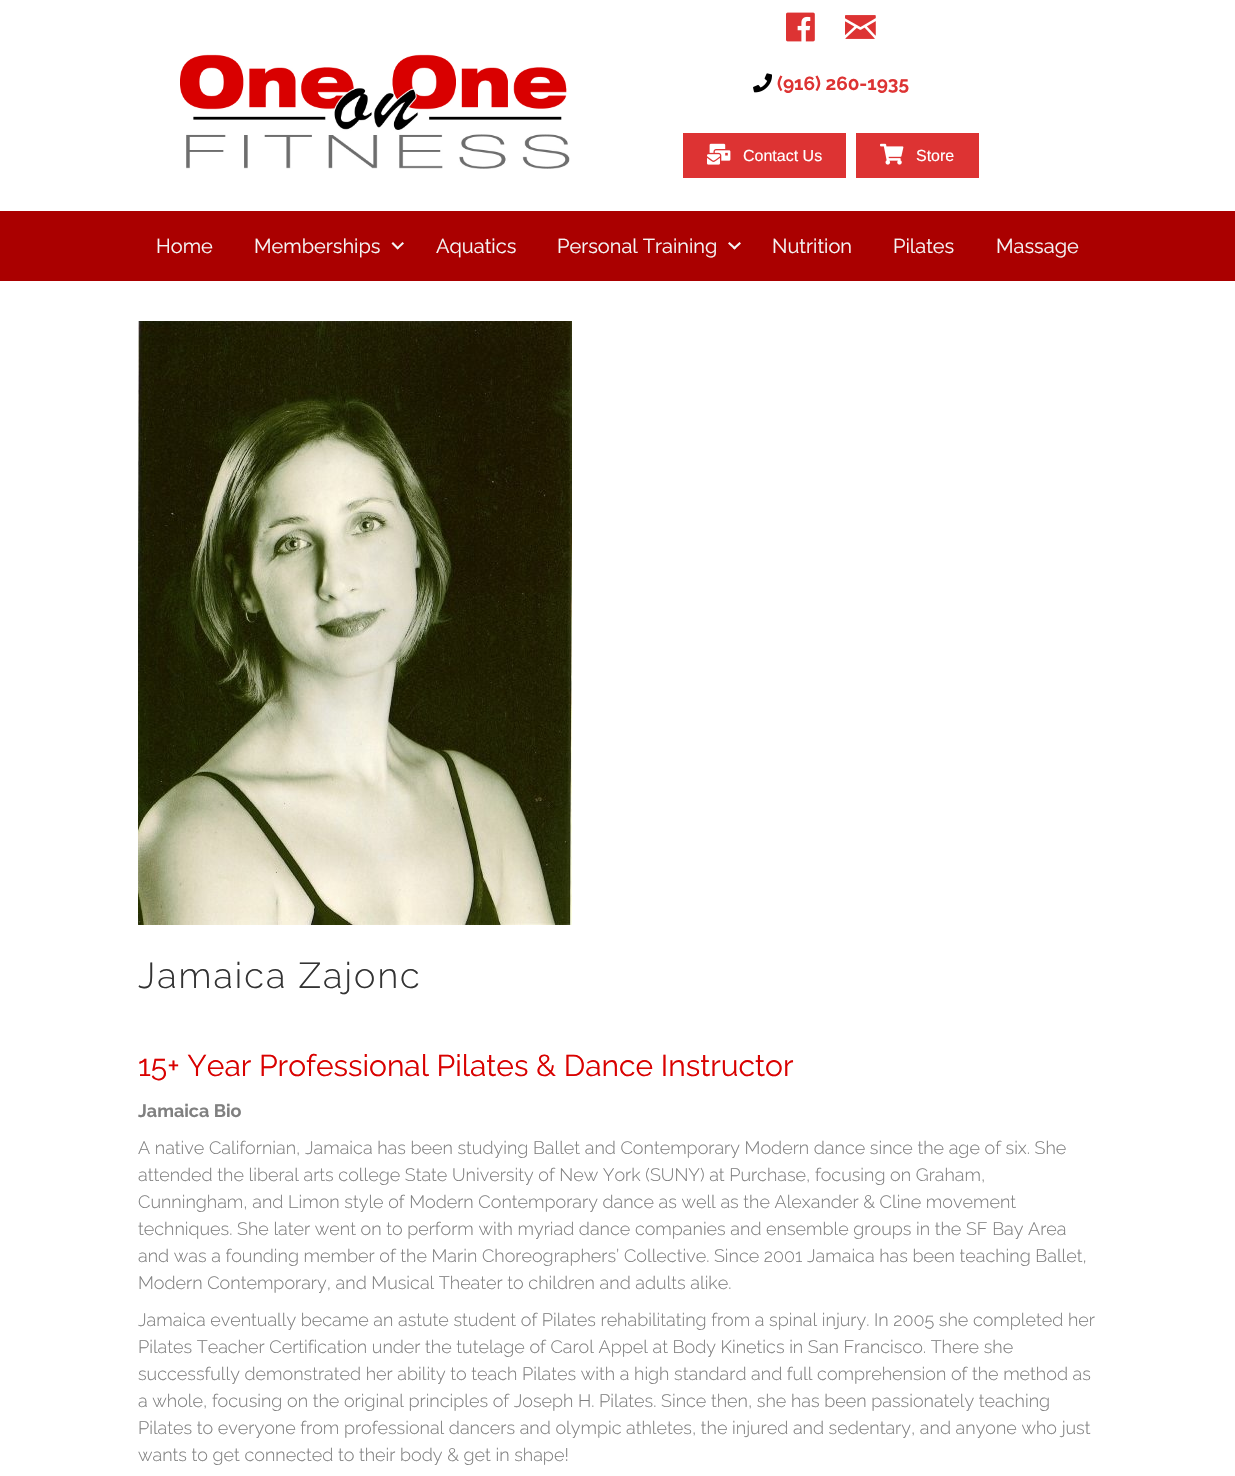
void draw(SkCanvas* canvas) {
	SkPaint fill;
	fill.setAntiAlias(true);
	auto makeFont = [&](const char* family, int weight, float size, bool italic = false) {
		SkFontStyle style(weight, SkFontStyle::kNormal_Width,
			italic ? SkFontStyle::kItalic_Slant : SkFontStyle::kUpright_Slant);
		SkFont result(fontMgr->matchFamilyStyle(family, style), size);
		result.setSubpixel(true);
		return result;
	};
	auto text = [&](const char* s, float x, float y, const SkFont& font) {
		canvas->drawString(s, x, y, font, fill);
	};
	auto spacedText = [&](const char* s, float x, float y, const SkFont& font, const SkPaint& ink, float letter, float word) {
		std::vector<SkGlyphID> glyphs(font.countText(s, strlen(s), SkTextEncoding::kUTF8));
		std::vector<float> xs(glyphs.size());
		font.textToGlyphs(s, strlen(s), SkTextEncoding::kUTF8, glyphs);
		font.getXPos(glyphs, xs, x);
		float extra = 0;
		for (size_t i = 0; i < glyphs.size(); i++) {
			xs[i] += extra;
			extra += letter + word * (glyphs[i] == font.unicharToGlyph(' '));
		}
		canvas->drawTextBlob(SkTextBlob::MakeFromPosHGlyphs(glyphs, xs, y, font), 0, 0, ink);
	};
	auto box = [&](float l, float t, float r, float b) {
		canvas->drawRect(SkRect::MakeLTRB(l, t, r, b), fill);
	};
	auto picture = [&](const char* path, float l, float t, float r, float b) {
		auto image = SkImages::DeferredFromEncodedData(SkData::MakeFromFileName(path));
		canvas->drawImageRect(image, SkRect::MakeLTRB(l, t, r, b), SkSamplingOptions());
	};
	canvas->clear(0xFFFFFFFF);
	picture("image0.png", 180, 54, 570, 169);
	picture("image1.png", 786, 12, 815, 42);
	picture("image2.png", 845, 15, 876, 39);
	picture("image3.png", 753, 73, 772, 93);
	fill.setColor(0xFFDD3333);
	box(683, 133, 846, 178);
	picture("image4.png", 707, 143, 731, 165);
	box(856, 133, 979, 178);
	picture("image5.png", 880, 143, 904, 165);
	fill.setColor(0xFFAA0000);
	box(0, 211, 1235, 281);
	fill.setColor(0xFFF5F5F5);
	canvas->drawPath(SkPathBuilder().moveTo(402.5f, 242).lineTo(404, 243.5f).lineTo(397.5f, 249.5f).lineTo(396.5f, 248).close().detach(), fill);
	canvas->drawPath(SkPathBuilder().moveTo(393, 242).lineTo(399, 248).lineTo(397.5f, 249.5f).lineTo(391.5f, 243.5f).close().detach(), fill);
	canvas->drawPath(SkPathBuilder().moveTo(739.5f, 242).lineTo(741, 243.5f).lineTo(734.5f, 249.5f).lineTo(733, 248).close().detach(), fill);
	canvas->drawPath(SkPathBuilder().moveTo(729.5f, 242).lineTo(736, 248).lineTo(734.5f, 249.5f).lineTo(728, 243.5f).close().detach(), fill);
	picture("image6.png", 138, 321, 572, 925);
	auto font1 = makeFont("Raleway", 700, 19);
	fill.setColor(0xFFDD3333);
	text("(916) 260-1935", 777, 90, font1);
	auto font2 = makeFont("Liberation Sans", 400, 16);
	fill.setColor(0xFFFFFFFF);
	text("Contact Us", 743, 161, font2);
	text("Store", 916, 161, font2);
	auto font3 = makeFont("Raleway", 400, 20);
	fill.setColor(0xFFF5F5F5);
	text("Home", 156, 253, font3);
	text("Memberships", 254, 253, font3);
	text("Aquatics", 436, 253, font3);
	text("Personal Training", 557, 253, font3);
	text("Nutrition", 772, 253, font3);
	text("Pilates", 893, 253, font3);
	text("Massage", 996, 253, font3);
	auto font4 = makeFont("Raleway", 300, 36);
	fill.setColor(0xFF333333);
	spacedText("Jamaica Zajonc", 138, 988, font4, fill, 2, 0);
	auto font5 = makeFont("Raleway", 400, 30);
	fill.setColor(0xFFD90100);
	text("15+ Year Professional Pilates & Dance Instructor", 138, 1076, font5);
	auto font6 = makeFont("Raleway", 700, 18);
	fill.setColor(0xFF808080);
	text("Jamaica Bio", 138, 1117, font6);
	auto font7 = makeFont("Raleway", 300, 18);
	text("A native Californian, Jamaica has been studying Ballet and Contemporary Modern dance since the age of six. She", 138, 1154, font7);
	text("attended the liberal arts college State University of New York (SUNY) at Purchase, focusing on Graham,", 138, 1181, font7);
	text("Cunningham, and Limon style of Modern Contemporary dance as well as the Alexander & Cline movement", 138, 1208, font7);
	text("techniques. She later went on to perform with myriad dance companies and ensemble groups in the SF Bay Area", 138, 1235, font7);
	text("and was a founding member of the Marin Choreographers’ Collective. Since 2001 Jamaica has been teaching Ballet,", 138, 1262, font7);
	text("Modern Contemporary, and Musical Theater to children and adults alike.", 138, 1289, font7);
	text("Jamaica eventually became an astute student of Pilates rehabilitating from a spinal injury. In 2005 she completed her", 138, 1326, font7);
	text("Pilates Teacher Certification under the tutelage of Carol Appel at Body Kinetics in San Francisco. There she", 138, 1353, font7);
	text("successfully demonstrated her ability to teach Pilates with a high standard and full comprehension of the method as", 138, 1380, font7);
	text("a whole, focusing on the original principles of Joseph H. Pilates. Since then, she has been passionately teaching", 138, 1407, font7);
	text("Pilates to everyone from professional dancers and olympic athletes, the injured and sedentary, and anyone who just", 138, 1434, font7);
	text("wants to get connected to their body & get in shape!", 138, 1461, font7);
}
